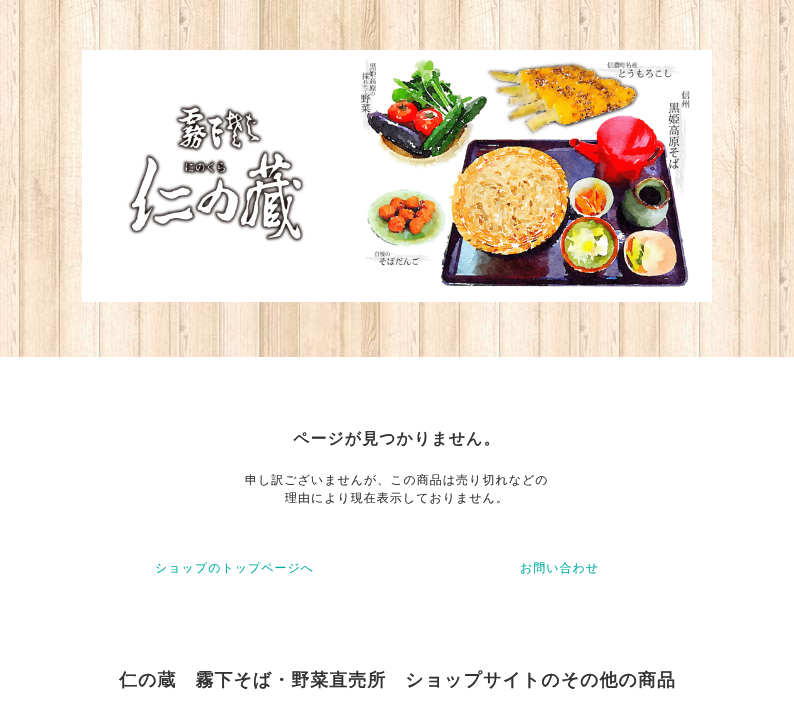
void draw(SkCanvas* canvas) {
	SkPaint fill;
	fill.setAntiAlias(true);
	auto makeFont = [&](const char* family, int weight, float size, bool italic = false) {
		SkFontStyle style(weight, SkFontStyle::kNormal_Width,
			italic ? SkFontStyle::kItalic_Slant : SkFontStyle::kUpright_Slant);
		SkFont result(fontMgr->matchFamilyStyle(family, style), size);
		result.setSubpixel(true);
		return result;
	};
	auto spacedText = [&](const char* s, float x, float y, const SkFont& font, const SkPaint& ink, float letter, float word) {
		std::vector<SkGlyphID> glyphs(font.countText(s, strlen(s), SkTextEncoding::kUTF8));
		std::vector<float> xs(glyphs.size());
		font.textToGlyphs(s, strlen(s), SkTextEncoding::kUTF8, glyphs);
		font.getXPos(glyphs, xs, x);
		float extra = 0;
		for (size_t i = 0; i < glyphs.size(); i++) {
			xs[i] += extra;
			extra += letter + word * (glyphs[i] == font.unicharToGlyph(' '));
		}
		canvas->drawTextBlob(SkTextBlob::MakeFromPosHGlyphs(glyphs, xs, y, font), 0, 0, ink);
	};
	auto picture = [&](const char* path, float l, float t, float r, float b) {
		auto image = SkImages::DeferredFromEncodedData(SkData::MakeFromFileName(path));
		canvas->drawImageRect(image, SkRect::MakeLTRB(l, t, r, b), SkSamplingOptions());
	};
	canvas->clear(0xFFFFFFFF);
	picture("image0.png", 0, 0, 794, 357);
	picture("image1.png", 82, 50, 712, 302);
	auto font1 = makeFont("WenQuanYi Zen Hei", 700, 16);
	fill.setColor(0xFF333333);
	spacedText("ページが見つかりません。", 293, 444, font1, fill, 1, 0);
	auto font2 = makeFont("WenQuanYi Zen Hei", 500, 12);
	spacedText("申し訳ございませんが、この商品は売り切れなどの", 245, 484, font2, fill, 1, 0);
	spacedText("理由により現在表示しておりません。", 285, 502, font2, fill, 1, 0);
	fill.setColor(0xFF00AE9F);
	spacedText("ショップのトップページへ", 155, 572, font2, fill, 1, 0);
	spacedText("お問い合わせ", 520, 572, font2, fill, 1, 0);
	auto font3 = makeFont("WenQuanYi Zen Hei", 700, 18);
	fill.setColor(0xFF333333);
	spacedText("仁の蔵　霧下そば・野菜直売所　ショップサイトのその他の商品", 119, 686, font3, fill, 1, 0);
}
